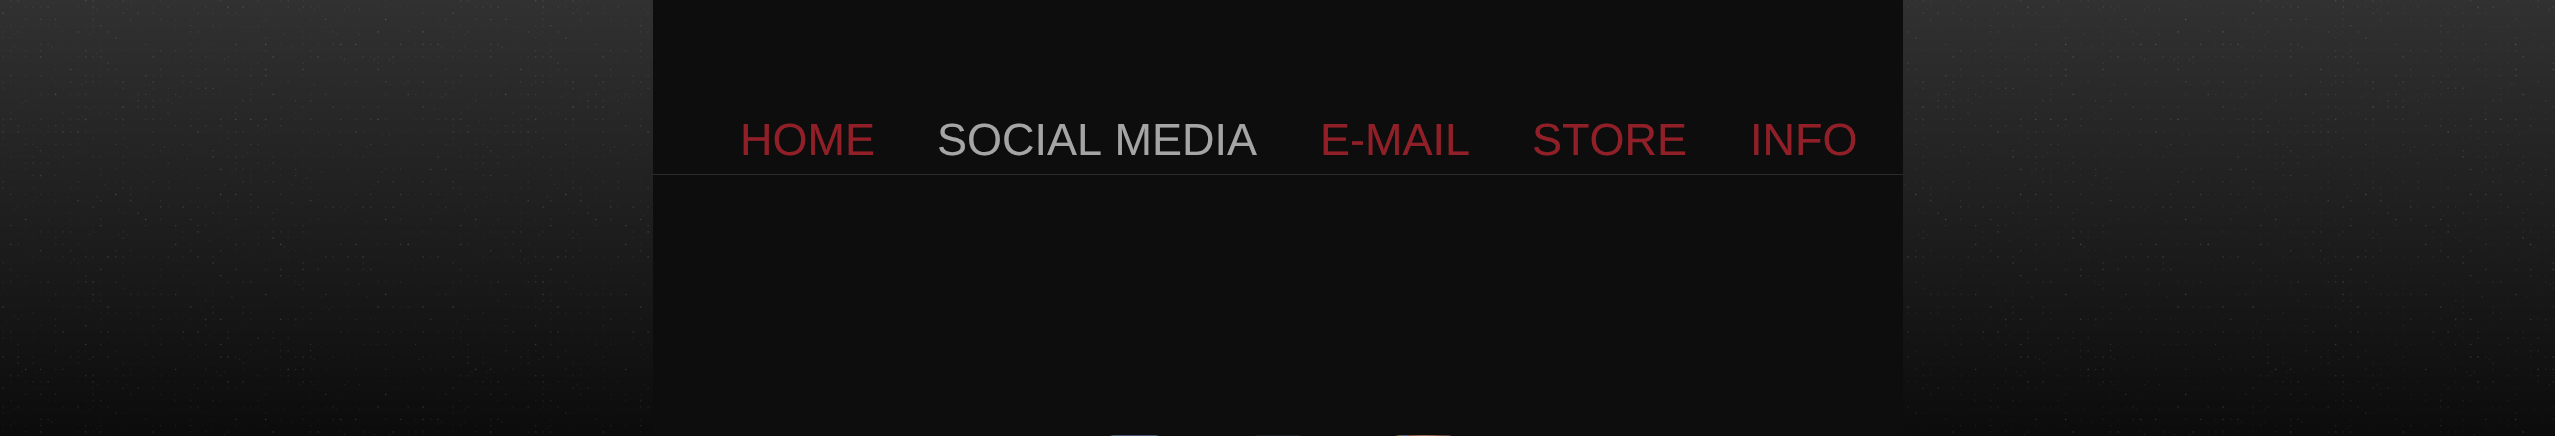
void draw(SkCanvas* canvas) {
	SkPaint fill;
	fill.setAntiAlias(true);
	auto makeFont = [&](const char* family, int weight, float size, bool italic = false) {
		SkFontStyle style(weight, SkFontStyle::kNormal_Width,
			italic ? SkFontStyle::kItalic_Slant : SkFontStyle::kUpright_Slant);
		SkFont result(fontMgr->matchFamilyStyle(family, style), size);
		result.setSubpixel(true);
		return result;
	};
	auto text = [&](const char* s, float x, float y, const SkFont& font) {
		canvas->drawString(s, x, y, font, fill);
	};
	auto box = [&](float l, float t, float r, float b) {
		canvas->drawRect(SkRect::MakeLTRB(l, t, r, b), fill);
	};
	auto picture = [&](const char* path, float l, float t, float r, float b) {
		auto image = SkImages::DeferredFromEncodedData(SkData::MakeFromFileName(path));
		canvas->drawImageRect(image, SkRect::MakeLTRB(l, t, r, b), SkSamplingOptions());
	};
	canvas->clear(0xFFFFFFFF);
	picture("image0.png", 0, 0, 2555, 436);
	fill.setColor(0xFF0D0D0D);
	box(653, 0, 1903, 435);
	fill.setColor(0xFF2B2B2B);
	box(653, 174, 1903, 175);
	picture("image1.png", 1110, 435, 1159, 436);
	picture("image2.png", 1255, 435, 1302, 436);
	picture("image3.png", 1395, 435, 1452, 436);
	auto font1 = makeFont("Liberation Sans", 400, 45);
	fill.setColor(0xFF901F28);
	text("HOME", 740, 155, font1);
	fill.setColor(0xFFA5A5A5);
	text("SOCIAL MEDIA", 937, 155, font1);
	fill.setColor(0xFF901F28);
	text("E-MAIL", 1320, 155, font1);
	text("STORE", 1532, 155, font1);
	text("INFO", 1750, 155, font1);
}
